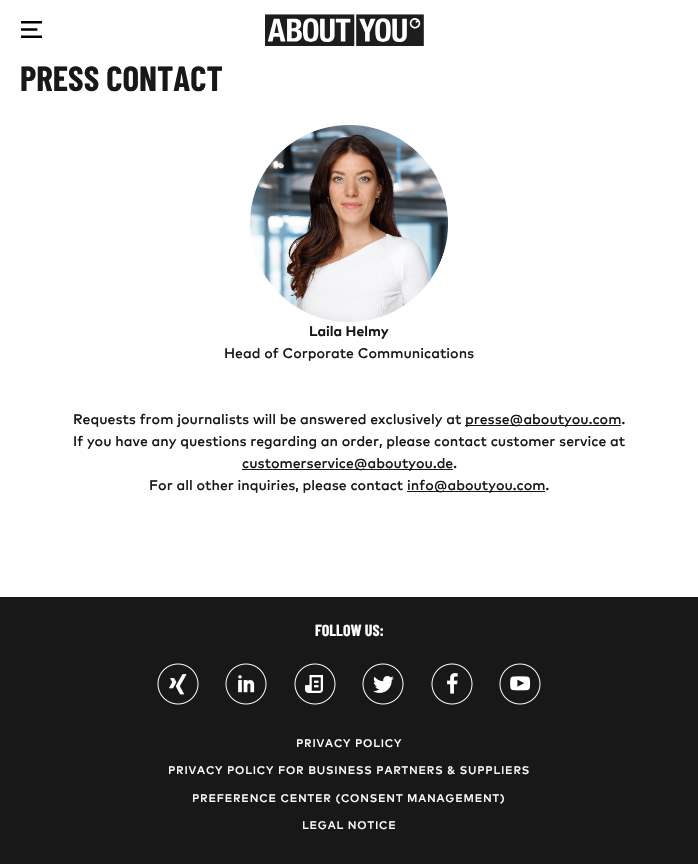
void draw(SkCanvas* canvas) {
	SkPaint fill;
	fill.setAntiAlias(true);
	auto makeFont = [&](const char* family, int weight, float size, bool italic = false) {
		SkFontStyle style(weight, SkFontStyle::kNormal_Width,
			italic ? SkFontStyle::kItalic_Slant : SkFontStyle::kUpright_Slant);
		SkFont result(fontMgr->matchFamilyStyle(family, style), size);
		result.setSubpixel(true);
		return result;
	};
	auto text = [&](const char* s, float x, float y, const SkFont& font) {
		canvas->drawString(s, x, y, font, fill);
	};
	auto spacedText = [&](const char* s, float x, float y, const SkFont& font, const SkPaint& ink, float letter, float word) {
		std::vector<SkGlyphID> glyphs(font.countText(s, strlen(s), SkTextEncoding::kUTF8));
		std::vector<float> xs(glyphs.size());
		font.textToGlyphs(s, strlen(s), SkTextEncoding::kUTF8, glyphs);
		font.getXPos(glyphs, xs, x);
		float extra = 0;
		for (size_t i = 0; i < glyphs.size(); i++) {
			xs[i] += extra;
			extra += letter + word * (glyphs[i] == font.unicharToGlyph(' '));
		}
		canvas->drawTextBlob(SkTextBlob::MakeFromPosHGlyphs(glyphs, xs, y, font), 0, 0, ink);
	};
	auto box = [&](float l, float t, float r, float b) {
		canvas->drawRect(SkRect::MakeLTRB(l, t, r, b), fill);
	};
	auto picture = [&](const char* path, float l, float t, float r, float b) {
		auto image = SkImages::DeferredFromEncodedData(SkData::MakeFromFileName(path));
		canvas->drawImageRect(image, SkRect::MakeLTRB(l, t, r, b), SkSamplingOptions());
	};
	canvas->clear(0xFFFFFFFF);
	picture("image0.png", 21, 21, 42, 38);
	picture("image1.png", 265, 14, 424, 46);
	picture("image2.png", 250, 125, 448, 322);
	fill.setColor(0xFF181818);
	box(465, 425, 621, 426);
	box(242, 469, 453, 470);
	box(407, 491, 545, 492);
	box(0, 597, 698, 864);
	picture("image3.png", 157, 663, 199, 705);
	picture("image4.png", 225, 663, 267, 705);
	picture("image5.png", 294, 663, 336, 705);
	picture("image6.png", 362, 663, 404, 705);
	picture("image7.png", 431, 663, 473, 705);
	picture("image8.png", 499, 663, 541, 705);
	auto font1 = makeFont("Barlow Condensed", 700, 35);
	text("PRESS CONTACT", 20, 91, font1);
	auto font2 = makeFont("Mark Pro", 700, 14);
	text("Laila Helmy", 309, 336, font2);
	auto font3 = makeFont("Mark Pro", 500, 14);
	text("Head of Corporate Communications", 224, 358, font3);
	text("Requests from journalists will be answered exclusively at", 73, 424, font3);
	text("presse@aboutyou.com.", 465, 424, font3);
	text("If you have any questions regarding an order, please contact customer service at", 73, 446, font3);
	text("customerservice@aboutyou.de.", 242, 468, font3);
	text("For all other inquiries, please contact", 149, 490, font3);
	text("info@aboutyou.com.", 407, 490, font3);
	auto font4 = makeFont("Barlow Condensed", 700, 16);
	fill.setColor(0xFFFFFFFF);
	text("FOLLOW US:", 315, 636, font4);
	auto font5 = makeFont("Mark Pro", 500, 11);
	spacedText("PRIVACY POLICY", 296, 747, font5, fill, 0.8f, 0);
	spacedText("PRIVACY POLICY FOR BUSINESS PARTNERS & SUPPLIERS", 168, 774, font5, fill, 0.8f, 0);
	spacedText("PREFERENCE CENTER (CONSENT MANAGEMENT)", 192, 802, font5, fill, 0.8f, 0);
	spacedText("LEGAL NOTICE", 302, 829, font5, fill, 0.8f, 0);
}
